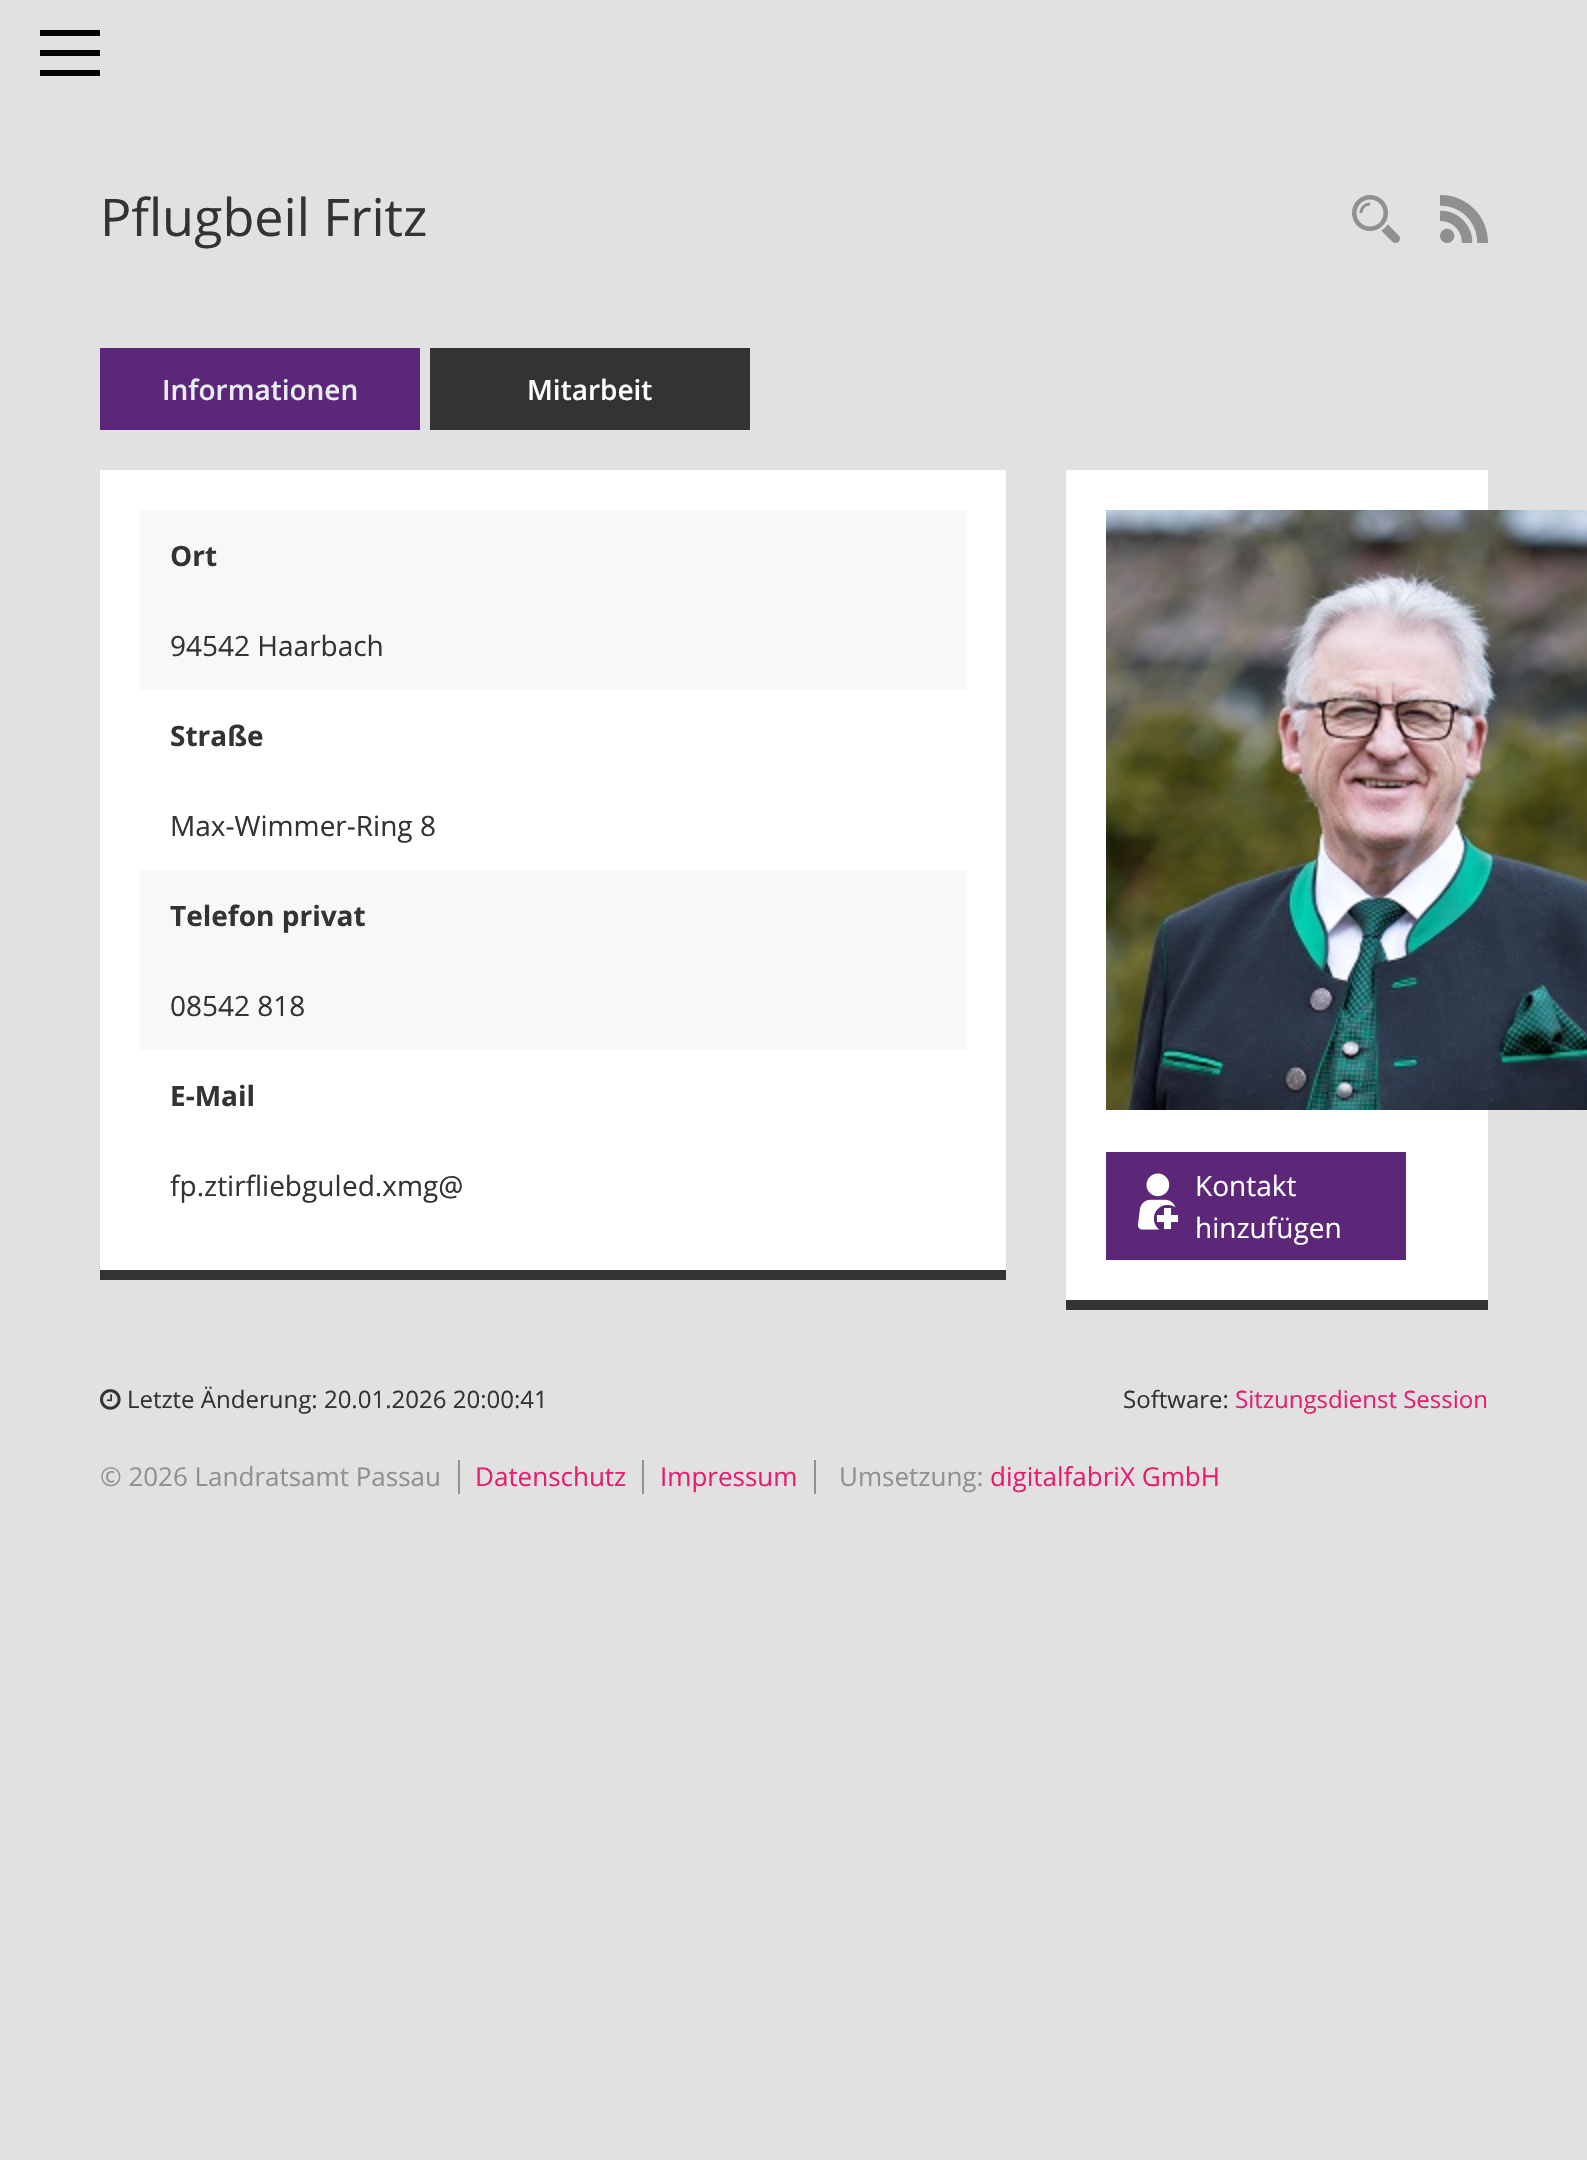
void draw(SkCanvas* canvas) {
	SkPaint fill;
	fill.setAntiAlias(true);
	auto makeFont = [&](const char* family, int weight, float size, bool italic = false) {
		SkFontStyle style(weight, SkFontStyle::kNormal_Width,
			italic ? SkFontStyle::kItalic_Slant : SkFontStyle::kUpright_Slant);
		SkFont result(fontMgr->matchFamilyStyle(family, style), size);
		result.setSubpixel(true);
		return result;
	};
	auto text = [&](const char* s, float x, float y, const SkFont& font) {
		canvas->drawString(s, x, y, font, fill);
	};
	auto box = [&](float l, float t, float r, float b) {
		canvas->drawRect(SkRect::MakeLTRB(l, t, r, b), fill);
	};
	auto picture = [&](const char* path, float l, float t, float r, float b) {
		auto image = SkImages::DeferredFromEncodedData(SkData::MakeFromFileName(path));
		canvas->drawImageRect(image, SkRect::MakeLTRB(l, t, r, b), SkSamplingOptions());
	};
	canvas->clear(0xFFE1E1E1);
	fill.setColor(0xFF000000);
	box(40, 30, 100, 36);
	box(40, 50, 100, 56);
	box(40, 70, 100, 76);
	picture("image0.png", 1352, 195, 1400, 243);
	picture("image1.png", 1440, 195, 1488, 243);
	fill.setColor(0xFFDEE2E6);
	box(420, 428, 1488, 430);
	fill.setColor(0xFF5C2778);
	box(100, 348, 420, 430);
	fill.setColor(0xFF333333);
	box(430, 348, 750, 430);
	fill.setColor(0xFFFFFFFF);
	box(100, 470, 1006, 1270);
	fill.setColor(0xFF333333);
	box(100, 1270, 1006, 1280);
	fill.setColor(0xFFF8F8F8);
	box(140, 510, 966, 690);
	box(140, 870, 966, 1050);
	fill.setColor(0xFFFFFFFF);
	box(1066, 470, 1488, 1300);
	fill.setColor(0xFF333333);
	box(1066, 1300, 1488, 1310);
	picture("image2.png", 1106, 510, 1587, 1110);
	fill.setColor(0xFF5C2778);
	box(1106, 1152, 1406, 1260);
	picture("image3.png", 1138, 1173, 1179, 1230);
	picture("image4.png", 100, 1389, 121, 1410);
	fill.setColor(0xFF909090);
	box(458, 1460, 460, 1494);
	box(642, 1460, 644, 1494);
	box(814, 1460, 816, 1494);
	auto font1 = makeFont("Open Sans", 400, 52);
	fill.setColor(0xFF333333);
	text("Pflugbeil Fritz", 100, 236, font1);
	auto font2 = makeFont("Open Sans", 600, 28);
	fill.setColor(0xFFE7EEF6);
	text("Informationen", 162, 400, font2);
	fill.setColor(0xFFFFFFFF);
	text("Mitarbeit", 527, 400, font2);
	auto font3 = makeFont("Open Sans", 700, 28);
	fill.setColor(0xFF333333);
	text("Ort", 170, 566, font3);
	auto font4 = makeFont("Open Sans", 400, 28);
	text("94542 Haarbach", 170, 656, font4);
	text("Straße", 170, 746, font3);
	text("Max-Wimmer-Ring 8", 170, 836, font4);
	text("Telefon privat", 170, 926, font3);
	text("08542 818", 170, 1016, font4);
	text("E-Mail", 170, 1106, font3);
	text("fp.ztirf", 170, 1196, font4);
	text("liebgul", 255, 1196, font4);
	text("ed.xmg@", 342, 1196, font4);
	fill.setColor(0xFFFFFFFF);
	text("Kontakt", 1195, 1196, font4);
	text("hinzufügen", 1195, 1238, font4);
	auto font5 = makeFont("Open Sans", 400, 24);
	fill.setColor(0xFF333333);
	text("Letzte Änderung: 20.01.2026 20:00:41", 127, 1408, font5);
	text("Software:", 1123, 1408, font5);
	fill.setColor(0xFFE71D72);
	text("Sitzungsdienst Session", 1235, 1408, font5);
	auto font6 = makeFont("Open Sans", 400, 26);
	fill.setColor(0xFF909090);
	text("© 2026 Landratsamt Passau", 100, 1486, font6);
	fill.setColor(0xFFE71D72);
	text("Datenschutz", 475, 1486, font6);
	text("Impressum", 660, 1486, font6);
	fill.setColor(0xFF909090);
	text("Umsetzung:", 839, 1486, font6);
	fill.setColor(0xFFE71D72);
	text("digitalfabriX GmbH", 990, 1486, font6);
}
